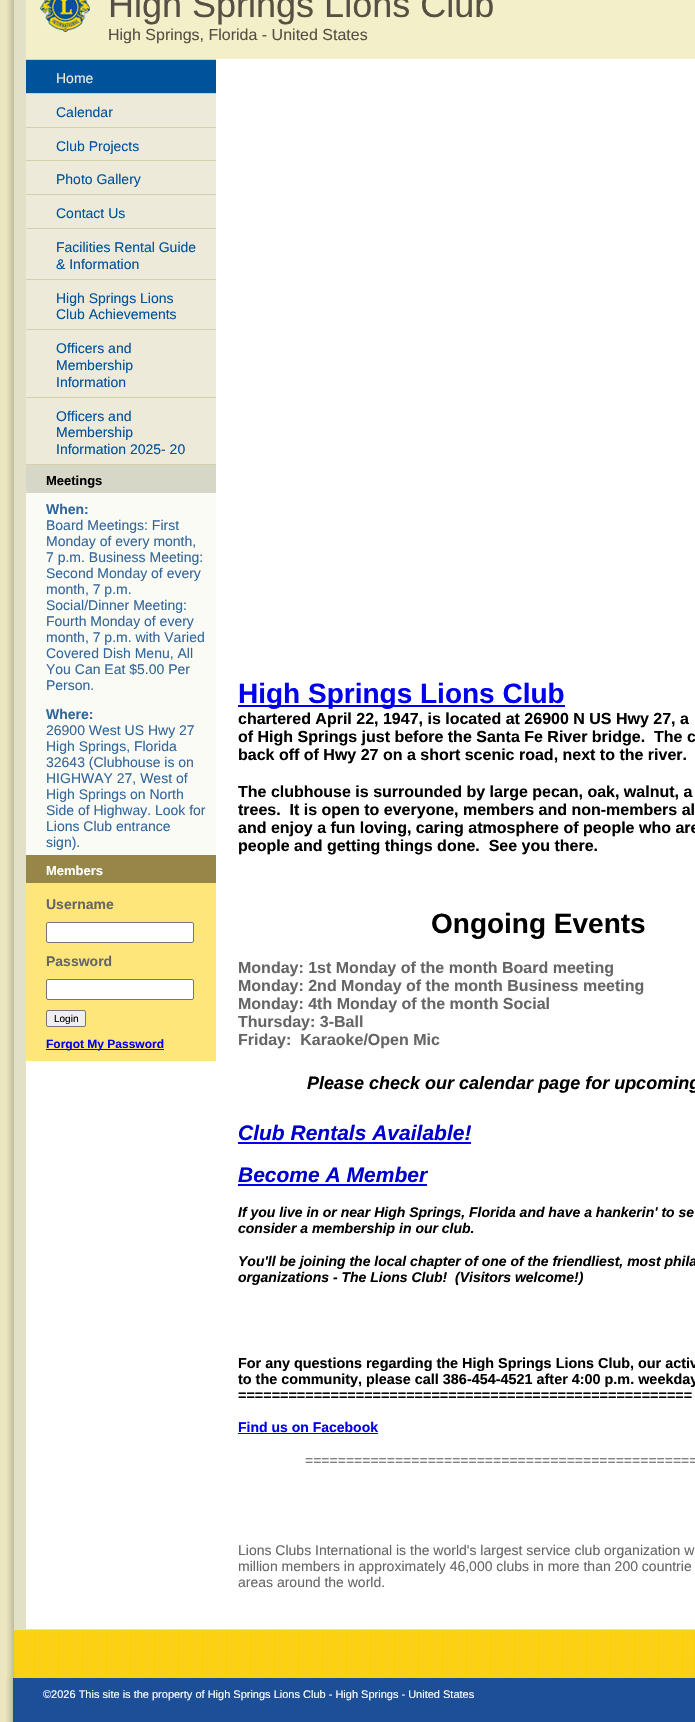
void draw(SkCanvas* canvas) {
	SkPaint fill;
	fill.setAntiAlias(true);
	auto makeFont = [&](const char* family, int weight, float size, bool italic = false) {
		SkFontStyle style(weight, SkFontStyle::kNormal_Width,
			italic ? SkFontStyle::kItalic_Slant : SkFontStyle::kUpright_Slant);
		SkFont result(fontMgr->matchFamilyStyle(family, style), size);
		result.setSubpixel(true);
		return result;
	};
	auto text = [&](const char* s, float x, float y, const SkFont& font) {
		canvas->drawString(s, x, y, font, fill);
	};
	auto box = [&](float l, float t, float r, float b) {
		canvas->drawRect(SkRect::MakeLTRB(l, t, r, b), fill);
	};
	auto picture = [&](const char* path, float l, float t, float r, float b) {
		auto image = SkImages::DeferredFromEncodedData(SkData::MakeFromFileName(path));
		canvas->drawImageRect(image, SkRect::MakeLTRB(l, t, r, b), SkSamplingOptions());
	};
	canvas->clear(0xFFEBE6C0);
	picture("image0.png", 7, 0, 14, 1678);
	fill.setColor(0xFFE2E0C6);
	box(14, 0, 695, 1630);
	picture("image1.png", 14, 1630, 695, 1678);
	fill.setColor(0xFFF3F0C9);
	box(26, 0, 695, 59);
	picture("image2.png", 40, 0, 90, 32);
	fill.setColor(0xFFFFFFFF);
	box(26, 59, 695, 1629);
	fill.setColor(0xFFD5D0AA);
	box(26, 59, 216, 60);
	box(26, 93, 216, 94);
	fill.setColor(0xFF00529B);
	box(26, 60, 216, 93);
	fill.setColor(0xFFD5D0AA);
	box(26, 127, 216, 128);
	fill.setColor(0xFFEDEADA);
	box(26, 94, 216, 127);
	fill.setColor(0xFFD5D0AA);
	box(26, 160, 216, 161);
	fill.setColor(0xFFEDEADA);
	box(26, 128, 216, 160);
	fill.setColor(0xFFD5D0AA);
	box(26, 194, 216, 195);
	fill.setColor(0xFFEDEADA);
	box(26, 161, 216, 194);
	fill.setColor(0xFFD5D0AA);
	box(26, 228, 216, 229);
	fill.setColor(0xFFEDEADA);
	box(26, 195, 216, 228);
	fill.setColor(0xFFD5D0AA);
	box(26, 279, 216, 280);
	fill.setColor(0xFFEDEADA);
	box(26, 229, 216, 279);
	fill.setColor(0xFFD5D0AA);
	box(26, 329, 216, 330);
	fill.setColor(0xFFEDEADA);
	box(26, 280, 216, 329);
	fill.setColor(0xFFD5D0AA);
	box(26, 397, 216, 398);
	fill.setColor(0xFFEDEADA);
	box(26, 330, 216, 397);
	fill.setColor(0xFFD5D0AA);
	box(26, 464, 216, 465);
	fill.setColor(0xFFEDEADA);
	box(26, 398, 216, 464);
	fill.setColor(0xFFFBFBF6);
	box(26, 493, 216, 855);
	fill.setColor(0xFFD7D7C7);
	box(26, 465, 216, 493);
	fill.setColor(0xFFFEE67A);
	box(26, 883, 216, 1061);
	fill.setColor(0xFF968648);
	box(26, 855, 216, 883);
	fill.setColor(0xFFFFFFFF);
	canvas->drawRoundRect(SkRect::MakeLTRB(46.5f, 922.5f, 193.5f, 942.5f), 1.5f, 1.5f, fill);
	fill.setStyle(SkPaint::kStroke_Style);
	fill.setStrokeWidth(1);
	fill.setColor(0xFF767676);
	canvas->drawRoundRect(SkRect::MakeLTRB(46.5f, 922.5f, 193.5f, 942.5f), 1.5f, 1.5f, fill);
	fill.setStyle(SkPaint::kFill_Style);
	fill.setColor(0xFFFFFFFF);
	canvas->drawRoundRect(SkRect::MakeLTRB(46.5f, 979.5f, 193.5f, 999.5f), 1.5f, 1.5f, fill);
	fill.setStyle(SkPaint::kStroke_Style);
	fill.setColor(0xFF767676);
	canvas->drawRoundRect(SkRect::MakeLTRB(46.5f, 979.5f, 193.5f, 999.5f), 1.5f, 1.5f, fill);
	fill.setStyle(SkPaint::kFill_Style);
	fill.setColor(0xFFEFEFEF);
	canvas->drawRoundRect(SkRect::MakeLTRB(46.5f, 1010.5f, 85.5f, 1026.5f), 1.5f, 1.5f, fill);
	fill.setStyle(SkPaint::kStroke_Style);
	fill.setColor(0xFF767676);
	canvas->drawRoundRect(SkRect::MakeLTRB(46.5f, 1010.5f, 85.5f, 1026.5f), 1.5f, 1.5f, fill);
	fill.setStyle(SkPaint::kFill_Style);
	fill.setColor(0xFF0000EE);
	box(46, 1049, 164, 1050);
	box(238, 705, 565, 707);
	box(238, 1142, 471, 1144);
	box(238, 1184, 427, 1186);
	box(238, 1433, 378, 1434);
	picture("image3.png", 6, 1678, 13, 1722);
	fill.setColor(0xFF1D4F99);
	box(13, 1678, 695, 1722);
	auto font1 = makeFont("Liberation Sans", 400, 36);
	fill.setColor(0xFF584F44);
	text("High Springs Lions Club", 108, 17, font1);
	auto font2 = makeFont("Liberation Sans", 400, 16);
	text("High Springs, Florida - United States", 108, 40, font2);
	auto font3 = makeFont("Liberation Sans", 400, 14);
	fill.setColor(0xFFEDEADA);
	text("Home", 56, 83, font3);
	fill.setColor(0xFF00529B);
	text("Calendar", 56, 117, font3);
	text("Club Projects", 56, 151, font3);
	text("Photo Gallery", 56, 184, font3);
	text("Contact Us", 56, 218, font3);
	text("Facilities Rental Guide", 56, 252, font3);
	text("& Information", 56, 269, font3);
	text("High Springs Lions", 56, 303, font3);
	text("Club Achievements", 56, 319, font3);
	text("Officers and", 56, 353, font3);
	text("Membership", 56, 370, font3);
	text("Information", 56, 387, font3);
	text("Officers and", 56, 421, font3);
	text("Membership", 56, 437, font3);
	text("Information 2025- 20", 56, 454, font3);
	auto font4 = makeFont("Liberation Sans", 700, 13);
	fill.setColor(0xFF000000);
	text("Meetings", 46, 485, font4);
	auto font5 = makeFont("Liberation Sans", 700, 14);
	fill.setColor(0xFF336699);
	text("When:", 46, 514, font5);
	text("Board Meetings: First", 46, 530, font3);
	text("Monday of every month,", 46, 546, font3);
	text("7 p.m. Business Meeting:", 46, 562, font3);
	text("Second Monday of every", 46, 578, font3);
	text("month, 7 p.m.", 46, 594, font3);
	text("Social/Dinner Meeting:", 46, 610, font3);
	text("Fourth Monday of every", 46, 626, font3);
	text("month, 7 p.m. with Varied", 46, 642, font3);
	text("Covered Dish Menu, All", 46, 658, font3);
	text("You Can Eat $5.00 Per", 46, 674, font3);
	text("Person.", 46, 690, font3);
	text("Where:", 46, 719, font5);
	text("26900 West US Hwy 27", 46, 735, font3);
	text("High Springs, Florida", 46, 751, font3);
	text("32643 (Clubhouse is on", 46, 767, font3);
	text("HIGHWAY 27, West of", 46, 783, font3);
	text("High Springs on North", 46, 799, font3);
	text("Side of Highway. Look for", 46, 815, font3);
	text("Lions Club entrance", 46, 831, font3);
	text("sign).", 46, 847, font3);
	fill.setColor(0xFFFFFFFF);
	text("Members", 46, 875, font4);
	fill.setColor(0xFF666666);
	text("Username", 46, 909, font5);
	text("Password", 46, 966, font5);
	auto font6 = makeFont("Liberation Sans", 400, 10);
	fill.setColor(0xFF000000);
	text("Login", 54, 1022, font6);
	auto font7 = makeFont("Liberation Sans", 700, 12);
	fill.setColor(0xFF0000EE);
	text("Forgot My Password", 46, 1048, font7);
	auto font8 = makeFont("Liberation Sans", 700, 28);
	text("High Springs Lions Club", 238, 703, font8);
	auto font9 = makeFont("Liberation Sans", 700, 16);
	fill.setColor(0xFF000000);
	text("chartered April 22, 1947, is located at 26900 N US Hwy 27, a", 238, 724, font9);
	text("of High Springs just before the Santa Fe River bridge.  The c", 238, 742, font9);
	text("back off of Hwy 27 on a short scenic road, next to the river.", 238, 760, font9);
	text("The clubhouse is surrounded by large pecan, oak, walnut, a", 238, 797, font9);
	text("trees.  It is open to everyone, members and non-members al", 238, 815, font9);
	text("and enjoy a fun loving, caring atmosphere of people who are", 238, 833, font9);
	text("people and getting things done.  See you there.", 238, 851, font9);
	text("Ongoing Events", 431, 933, font8);
	fill.setColor(0xFF666666);
	text("Monday: 1st Monday of the month Board meeting", 238, 973, font9);
	text("Monday: 2nd Monday of the month Business meeting", 238, 991, font9);
	text("Monday: 4th Monday of the month Social", 238, 1009, font9);
	text("Thursday: 3-Ball", 238, 1027, font9);
	text("Friday:  Karaoke/Open Mic", 238, 1045, font9);
	auto font10 = makeFont("Liberation Sans", 700, 18, true);
	fill.setColor(0xFF000000);
	text("Please check our calendar page for upcoming", 307, 1089, font10);
	auto font11 = makeFont("Liberation Sans", 700, 21, true);
	fill.setColor(0xFF0000CD);
	text("Club Rentals Available!", 238, 1140, font11);
	text("Become A Member", 238, 1182, font11);
	auto font12 = makeFont("Liberation Sans", 700, 14, true);
	fill.setColor(0xFF000000);
	text("If you live in or near High Springs, Florida and have a hankerin' to se", 238, 1217, font12);
	text("consider a membership in our club.", 238, 1233, font12);
	text("You'll be joining the local chapter of one of the friendliest, most phila", 238, 1266, font12);
	text("organizations - The Lions Club!  (Visitors welcome!)", 238, 1282, font12);
	auto font13 = makeFont("Liberation Sans", 700, 14.4f);
	text("For any questions regarding the High Springs Lions Club, our activ", 238, 1368, font13);
	text("to the community, please call 386-454-4521 after 4:00 p.m. weekday", 238, 1384, font13);
	text("======================================================", 238, 1400, font13);
	fill.setColor(0xFF0000EE);
	text("Find us on Facebook", 238, 1432, font5);
	fill.setColor(0xFF666666);
	text("================================================", 305, 1465, font3);
	text("Lions Clubs International is the world's largest service club organization w", 238, 1555, font3);
	text("million members in approximately 46,000 clubs in more than 200 countrie", 238, 1571, font3);
	text("areas around the world.", 238, 1587, font3);
	auto font14 = makeFont("Liberation Sans", 400, 11);
	fill.setColor(0xFFFFFFFF);
	text("©2026 This site is the property of High Springs Lions Club - High Springs - United States", 43, 1698, font14);
}
